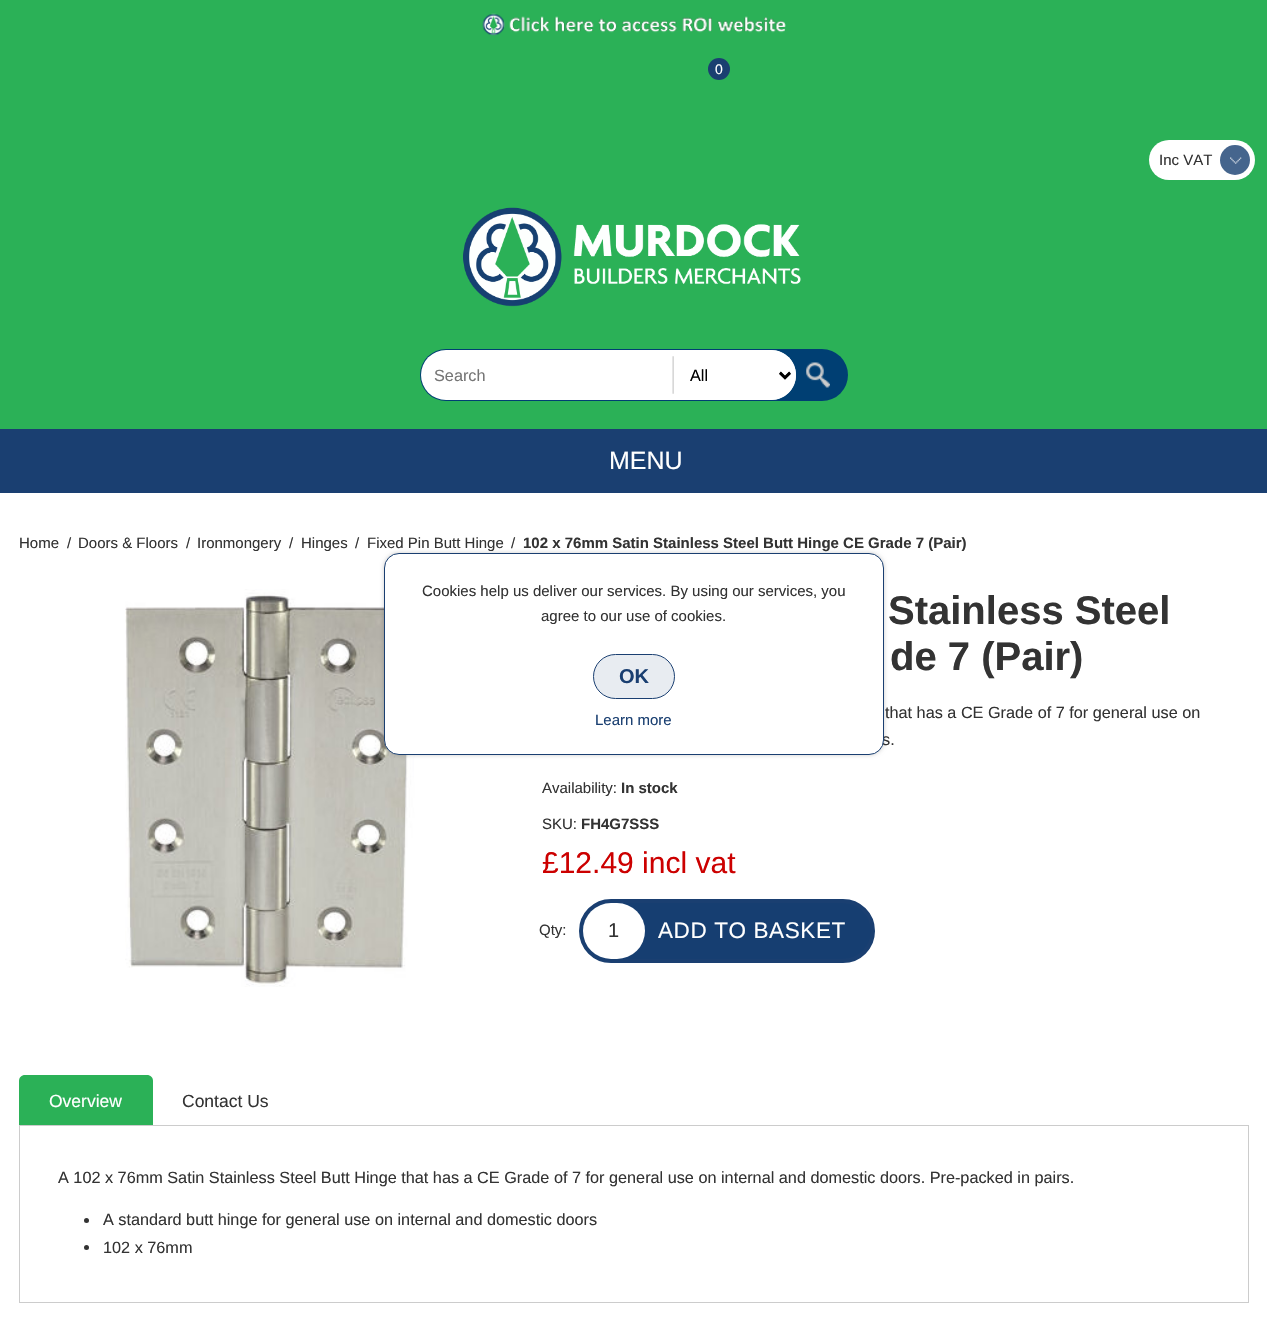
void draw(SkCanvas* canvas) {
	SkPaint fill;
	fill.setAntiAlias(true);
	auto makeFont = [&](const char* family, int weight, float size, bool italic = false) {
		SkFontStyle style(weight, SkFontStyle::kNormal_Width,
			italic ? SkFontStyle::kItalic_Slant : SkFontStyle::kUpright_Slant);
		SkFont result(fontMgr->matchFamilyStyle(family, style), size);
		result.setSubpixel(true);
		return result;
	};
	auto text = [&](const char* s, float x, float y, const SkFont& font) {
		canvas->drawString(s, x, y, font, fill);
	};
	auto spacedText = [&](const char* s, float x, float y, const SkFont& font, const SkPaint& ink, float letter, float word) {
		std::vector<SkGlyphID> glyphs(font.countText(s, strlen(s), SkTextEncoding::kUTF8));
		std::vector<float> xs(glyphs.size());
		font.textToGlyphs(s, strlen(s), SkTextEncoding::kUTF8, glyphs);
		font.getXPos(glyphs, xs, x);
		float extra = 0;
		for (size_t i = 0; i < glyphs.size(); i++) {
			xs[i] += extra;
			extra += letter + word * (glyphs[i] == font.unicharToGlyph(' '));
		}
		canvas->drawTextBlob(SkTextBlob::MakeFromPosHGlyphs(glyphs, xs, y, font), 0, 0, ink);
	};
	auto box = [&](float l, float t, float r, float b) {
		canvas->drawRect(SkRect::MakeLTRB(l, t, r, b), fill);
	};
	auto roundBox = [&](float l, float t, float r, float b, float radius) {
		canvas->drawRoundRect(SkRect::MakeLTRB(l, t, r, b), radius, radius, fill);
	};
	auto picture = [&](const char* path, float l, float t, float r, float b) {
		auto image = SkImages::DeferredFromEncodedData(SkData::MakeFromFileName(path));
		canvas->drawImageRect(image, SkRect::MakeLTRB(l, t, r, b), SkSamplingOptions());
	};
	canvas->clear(0xFFFFFFFF);
	fill.setColor(0xFF2BB157);
	box(0, 0, 1267, 429);
	picture("image0.png", 482, 13, 786, 36);
	fill.setColor(0xFF1A3F71);
	canvas->drawCircle(719, 69, 11, fill);
	fill.setColor(0xFFFFFFFF);
	roundBox(1149, 140, 1255, 180, 20);
	fill.setColor(0xFF45658D);
	canvas->drawCircle(1235, 160, 15, fill);
	picture("image1.png", 1230, 157, 1242, 164);
	picture("image2.png", 463, 207, 801, 307);
	fill.setColor(0xFF003F73);
	roundBox(420, 349, 848, 401, 26);
	fill.setColor(0xFFFFFFFF);
	roundBox(421, 350, 796, 400, 25);
	canvas->drawPath(SkPathBuilder().moveTo(671, 350).lineTo(771, 350).cubicTo(785, 350, 796, 361, 796, 375).cubicTo(796, 389, 785, 400, 771, 400).lineTo(671, 400).close().detach(), fill);
	picture("image3.png", 672, 356, 791, 394);
	fill.setStyle(SkPaint::kStroke_Style);
	fill.setStrokeWidth(2.5f);
	fill.setColor(0xFF000000);
	canvas->drawPath(SkPathBuilder().moveTo(780, 373).lineTo(785, 378).lineTo(790, 373).detach(), fill);
	picture("image4.png", 806, 362, 830, 388);
	fill.setStyle(SkPaint::kFill_Style);
	fill.setColor(0xFF1A3F71);
	box(0, 429, 1267, 493);
	picture("image5.png", 125, 589, 415, 987);
	fill.setColor(0xFF163E71);
	canvas->drawRoundRect(SkRect::MakeLTRB(581, 901, 873, 961), 30, 30, fill);
	fill.setStyle(SkPaint::kStroke_Style);
	fill.setStrokeWidth(4);
	fill.setColor(0xFF1A3F71);
	canvas->drawRoundRect(SkRect::MakeLTRB(581, 901, 873, 961), 30, 30, fill);
	fill.setStyle(SkPaint::kFill_Style);
	fill.setColor(0xFFFFFFFF);
	roundBox(583, 903, 645, 959, 28);
	fill.setColor(0xFF2BB157);
	canvas->drawPath(SkPathBuilder().moveTo(25, 1075).lineTo(147, 1075).cubicTo(150.5f, 1075, 153, 1077.5f, 153, 1081).lineTo(153, 1125).lineTo(19, 1125).lineTo(19, 1081).cubicTo(19, 1077.5f, 21.5f, 1075, 25, 1075).close().detach(), fill);
	fill.setStyle(SkPaint::kStroke_Style);
	fill.setStrokeWidth(1);
	fill.setColor(0xFFCCCCCC);
	canvas->drawRect(SkRect::MakeLTRB(19.5f, 1125.5f, 1248.5f, 1302.5f), fill);
	fill.setStyle(SkPaint::kFill_Style);
	fill.setColor(0xFF333333);
	canvas->drawCircle(86.5f, 1220.5f, 2.5f, fill);
	canvas->drawCircle(86.5f, 1247.5f, 2.5f, fill);
	fill.setColor(0x33000000);
	fill.setMaskFilter(SkMaskFilter::MakeBlur(kNormal_SkBlurStyle, 2));
	canvas->drawRoundRect(SkRect::MakeLTRB(384, 553, 884, 755), 15, 15, fill);
	fill.setMaskFilter(nullptr);
	auto font1 = makeFont("Liberation Sans", 400, 14);
	fill.setColor(0xFFFFFFFF);
	text("0", 715, 74, font1);
	auto font2 = makeFont("Liberation Sans", 400, 15);
	fill.setColor(0xFF333333);
	text("Inc VAT", 1159, 165, font2);
	auto font3 = makeFont("Liberation Sans", 400, 16.25f);
	fill.setColor(0xFF757575);
	text("Search", 434, 381, font3);
	fill.setColor(0xFF000000);
	text("All", 690, 381, font3);
	auto font4 = makeFont("Liberation Sans", 400, 25);
	fill.setColor(0xFFFFFFFF);
	text("MENU", 609, 469, font4);
	fill.setColor(0xFF333333);
	text("Home", 19, 548, font2);
	text("/", 67, 548, font2);
	text("Doors & Floors", 78, 548, font2);
	text("/", 186, 548, font2);
	text("Ironmongery", 197, 548, font2);
	text("/", 289, 548, font2);
	text("Hinges", 301, 548, font2);
	text("/", 355, 548, font2);
	text("Fixed Pin Butt Hinge", 367, 548, font2);
	text("/", 511, 548, font2);
	auto font5 = makeFont("Liberation Sans", 700, 15);
	text("102 x 76mm Satin Stainless Steel Butt Hinge CE Grade 7 (Pair)", 523, 548, font5);
	auto font6 = makeFont("Liberation Sans", 700, 40);
	text("Stainless Steel", 888, 624, font6);
	text("de 7 (Pair)", 890, 670, font6);
	text("that has a CE Grade of 7 for general use on", 885, 718, font3);
	text("s.", 882, 745, font3);
	text("Availability:", 542, 793, font2);
	text("In stock", 621, 793, font5);
	text("SKU:", 542, 829, font2);
	text("FH4G7SSS", 581, 829, font5);
	auto font7 = makeFont("Liberation Sans", 400, 30);
	fill.setColor(0xFFCC0000);
	text("£12.49 incl vat", 542, 873, font7);
	fill.setColor(0xFF333333);
	text("Qty:", 539, 935, font2);
	auto font8 = makeFont("Liberation Sans", 400, 20);
	text("1", 608, 937, font8);
	auto font9 = makeFont("Liberation Sans", 400, 22.5f);
	fill.setColor(0xFFFFFFFF);
	spacedText("ADD TO BASKET", 658, 938, font9, fill, 0.6f, 0);
	auto font10 = makeFont("Liberation Sans", 400, 17.5f);
	text("Overview", 49, 1107, font10);
	fill.setColor(0xFF333333);
	text("Contact Us", 182, 1107, font10);
	text("A 102 x 76mm Satin Stainless Steel Butt Hinge that has a CE Grade of 7 for general use on internal and domestic doors. Pre-packed in pairs.", 58, 1183, font3);
	text("A standard butt hinge for general use on internal and domestic doors", 103, 1225, font3);
	text("102 x 76mm", 103, 1253, font3);
	fill.setColor(0xFFFFFFFF);
	canvas->drawRoundRect(SkRect::MakeLTRB(384.5f, 553.5f, 883.5f, 754.5f), 14.5f, 14.5f, fill);
	fill.setStyle(SkPaint::kStroke_Style);
	fill.setColor(0xFF1A3F71);
	canvas->drawRoundRect(SkRect::MakeLTRB(384.5f, 553.5f, 883.5f, 754.5f), 14.5f, 14.5f, fill);
	fill.setStyle(SkPaint::kFill_Style);
	fill.setColor(0xFF333333);
	text("Cookies help us deliver our services. By using our services, you", 422, 596, font2);
	text("agree to our use of cookies.", 541, 621, font2);
	fill.setColor(0xFFE8ECF1);
	canvas->drawRoundRect(SkRect::MakeLTRB(593.5f, 654.5f, 674.5f, 698.5f), 22, 22, fill);
	fill.setStyle(SkPaint::kStroke_Style);
	fill.setColor(0xFF1A3F71);
	canvas->drawRoundRect(SkRect::MakeLTRB(593.5f, 654.5f, 674.5f, 698.5f), 22, 22, fill);
	auto font11 = makeFont("Liberation Sans", 700, 20);
	fill.setStyle(SkPaint::kFill_Style);
	text("OK", 619, 683, font11);
	text("Learn more", 595, 725, font2);
}
